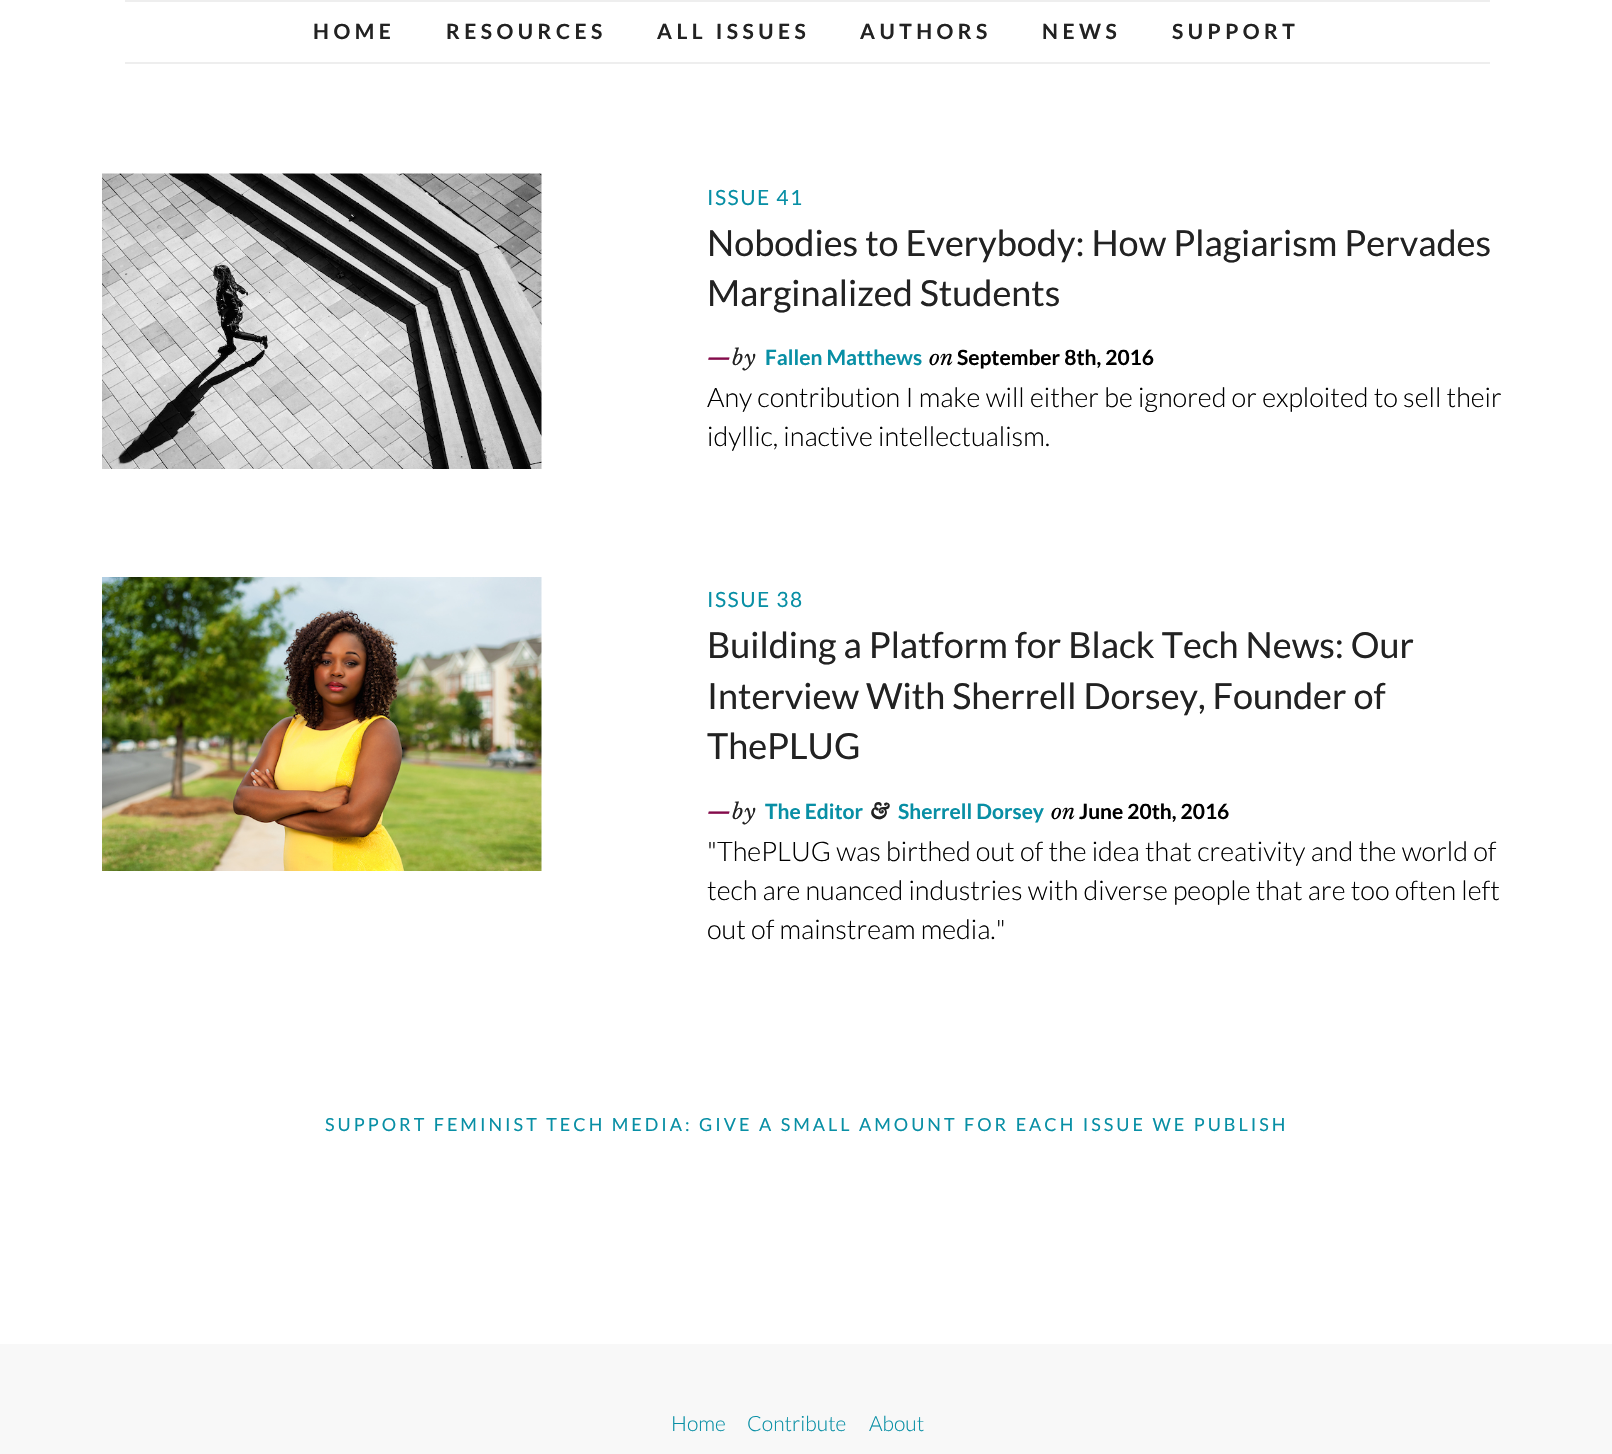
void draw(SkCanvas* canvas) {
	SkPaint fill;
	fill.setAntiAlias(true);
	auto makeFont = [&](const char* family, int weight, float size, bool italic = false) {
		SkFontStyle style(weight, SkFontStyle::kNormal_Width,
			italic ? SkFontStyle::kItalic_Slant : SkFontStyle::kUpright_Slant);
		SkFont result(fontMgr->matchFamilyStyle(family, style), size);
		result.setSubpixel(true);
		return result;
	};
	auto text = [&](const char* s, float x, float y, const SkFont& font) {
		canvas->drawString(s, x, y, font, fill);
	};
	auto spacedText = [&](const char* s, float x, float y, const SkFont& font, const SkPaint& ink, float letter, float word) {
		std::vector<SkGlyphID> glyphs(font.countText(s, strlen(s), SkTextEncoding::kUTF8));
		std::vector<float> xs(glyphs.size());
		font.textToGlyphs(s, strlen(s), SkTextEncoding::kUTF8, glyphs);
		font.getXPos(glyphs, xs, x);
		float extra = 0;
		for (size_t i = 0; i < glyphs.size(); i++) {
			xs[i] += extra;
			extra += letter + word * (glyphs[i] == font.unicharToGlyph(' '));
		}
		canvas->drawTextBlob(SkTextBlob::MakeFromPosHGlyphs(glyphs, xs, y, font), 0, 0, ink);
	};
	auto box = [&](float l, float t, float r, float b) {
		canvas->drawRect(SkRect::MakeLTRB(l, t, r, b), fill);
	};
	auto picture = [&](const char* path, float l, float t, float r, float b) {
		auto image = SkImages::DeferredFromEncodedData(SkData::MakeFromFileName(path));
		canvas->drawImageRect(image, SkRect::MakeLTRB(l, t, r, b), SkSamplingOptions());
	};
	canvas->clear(0xFFFFFFFF);
	fill.setColor(0xFFEEEEEE);
	box(125, 0, 1490, 2);
	box(125, 62, 1490, 64);
	picture("image0.png", 102, 173, 542, 469);
	picture("image1.png", 102, 577, 542, 871);
	fill.setColor(0xFFF8F8F8);
	box(0, 1344, 1612, 1454);
	auto font1 = makeFont("Lato", 700, 21);
	fill.setColor(0xFF222222);
	spacedText("HOME", 313, 39, font1, fill, 4.5f, 0);
	spacedText("RESOURCES", 446, 39, font1, fill, 4.5f, 0);
	spacedText("ALL ISSUES", 657, 39, font1, fill, 4.5f, 0);
	spacedText("AUTHORS", 860, 39, font1, fill, 4.5f, 0);
	spacedText("NEWS", 1042, 39, font1, fill, 4.5f, 0);
	spacedText("SUPPORT", 1172, 39, font1, fill, 4.5f, 0);
	auto font2 = makeFont("Lato", 400, 21);
	fill.setColor(0xFF088FA5);
	spacedText("ISSUE 41", 707, 205, font2, fill, 1.5f, 0);
	auto font3 = makeFont("Lato", 400, 36);
	fill.setColor(0xFF222222);
	text("Nobodies to Everybody: How Plagiarism Pervades", 707, 256, font3);
	text("Marginalized Students", 707, 306, font3);
	auto font4 = makeFont("Libre Baskerville", 700, 21, true);
	fill.setColor(0xFF840B4B);
	spacedText("—", 707, 365, font4, fill, 1.5f, 0);
	auto font5 = makeFont("Libre Baskerville", 400, 21, true);
	fill.setColor(0xFF222222);
	spacedText("by", 732, 365, font5, fill, 1.5f, 0);
	fill.setColor(0xFF088FA5);
	text("Fallen Matthews", 765, 365, font1);
	fill.setColor(0xFF000000);
	text("on", 929, 365, font5);
	text("September 8th, 2016", 957, 365, font1);
	auto font6 = makeFont("Lato", 300, 27);
	text("Any contribution I make will either be ignored or exploited to sell their", 707, 407, font6);
	text("idyllic, inactive intellectualism.", 707, 446, font6);
	fill.setColor(0xFF088FA5);
	spacedText("ISSUE 38", 707, 607, font2, fill, 1.5f, 0);
	fill.setColor(0xFF222222);
	text("Building a Platform for Black Tech News: Our", 707, 658, font3);
	text("Interview With Sherrell Dorsey, Founder of", 707, 709, font3);
	text("ThePLUG", 707, 759, font3);
	fill.setColor(0xFF840B4B);
	spacedText("—", 707, 819, font4, fill, 1.5f, 0);
	fill.setColor(0xFF222222);
	spacedText("by", 732, 819, font5, fill, 1.5f, 0);
	fill.setColor(0xFF088FA5);
	text("The Editor", 765, 819, font1);
	fill.setColor(0xFF222222);
	spacedText("&", 870, 819, font4, fill, 1.5f, 0);
	fill.setColor(0xFF088FA5);
	text("Sherrell Dorsey", 898, 819, font1);
	fill.setColor(0xFF000000);
	text("on", 1051, 819, font5);
	text("June 20th, 2016", 1079, 819, font1);
	text("\"ThePLUG was birthed out of the idea that creativity and the world of", 707, 861, font6);
	text("tech are nuanced industries with diverse people that are too often left", 707, 900, font6);
	text("out of mainstream media.\"", 707, 939, font6);
	auto font7 = makeFont("Lato", 400, 18);
	fill.setColor(0xFF088FA5);
	spacedText("SUPPORT FEMINIST TECH MEDIA: GIVE A SMALL AMOUNT FOR EACH ISSUE WE PUBLISH", 325, 1131, font7, fill, 3, 0);
	auto font8 = makeFont("Lato", 300, 21);
	text("Home", 671, 1431, font8);
	text("Contribute", 747, 1431, font8);
	text("About", 869, 1431, font8);
}
